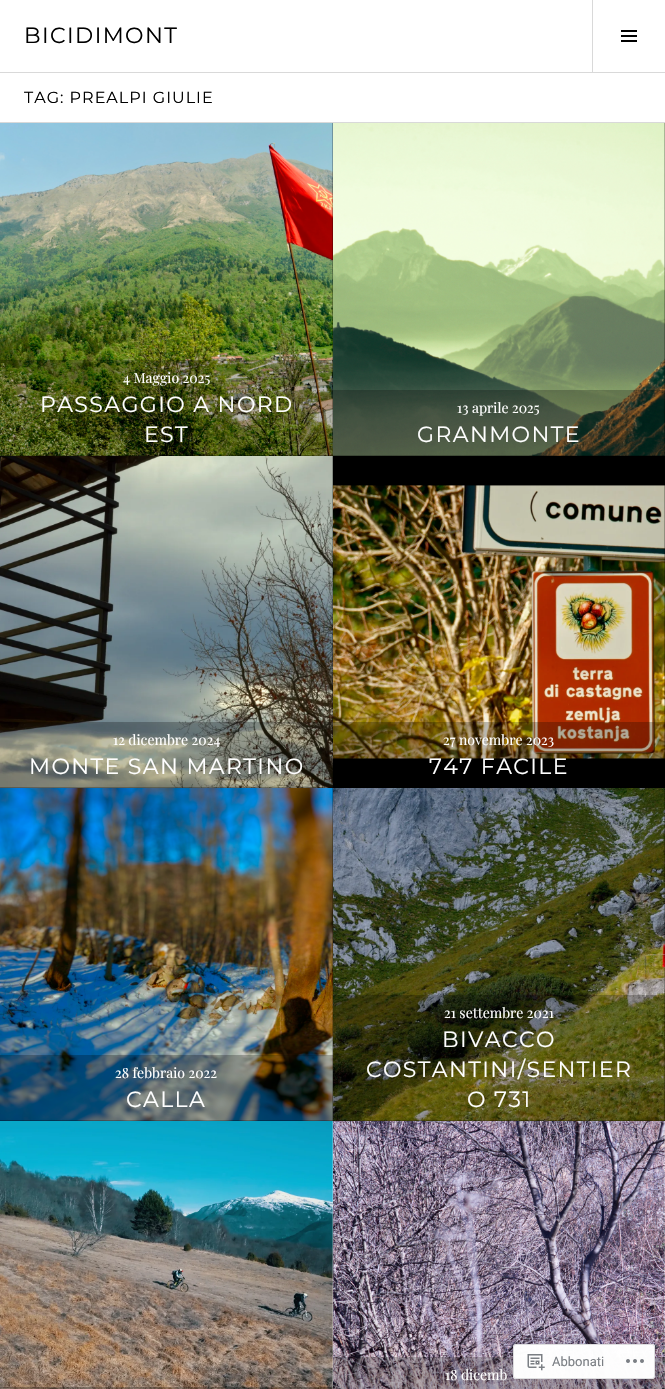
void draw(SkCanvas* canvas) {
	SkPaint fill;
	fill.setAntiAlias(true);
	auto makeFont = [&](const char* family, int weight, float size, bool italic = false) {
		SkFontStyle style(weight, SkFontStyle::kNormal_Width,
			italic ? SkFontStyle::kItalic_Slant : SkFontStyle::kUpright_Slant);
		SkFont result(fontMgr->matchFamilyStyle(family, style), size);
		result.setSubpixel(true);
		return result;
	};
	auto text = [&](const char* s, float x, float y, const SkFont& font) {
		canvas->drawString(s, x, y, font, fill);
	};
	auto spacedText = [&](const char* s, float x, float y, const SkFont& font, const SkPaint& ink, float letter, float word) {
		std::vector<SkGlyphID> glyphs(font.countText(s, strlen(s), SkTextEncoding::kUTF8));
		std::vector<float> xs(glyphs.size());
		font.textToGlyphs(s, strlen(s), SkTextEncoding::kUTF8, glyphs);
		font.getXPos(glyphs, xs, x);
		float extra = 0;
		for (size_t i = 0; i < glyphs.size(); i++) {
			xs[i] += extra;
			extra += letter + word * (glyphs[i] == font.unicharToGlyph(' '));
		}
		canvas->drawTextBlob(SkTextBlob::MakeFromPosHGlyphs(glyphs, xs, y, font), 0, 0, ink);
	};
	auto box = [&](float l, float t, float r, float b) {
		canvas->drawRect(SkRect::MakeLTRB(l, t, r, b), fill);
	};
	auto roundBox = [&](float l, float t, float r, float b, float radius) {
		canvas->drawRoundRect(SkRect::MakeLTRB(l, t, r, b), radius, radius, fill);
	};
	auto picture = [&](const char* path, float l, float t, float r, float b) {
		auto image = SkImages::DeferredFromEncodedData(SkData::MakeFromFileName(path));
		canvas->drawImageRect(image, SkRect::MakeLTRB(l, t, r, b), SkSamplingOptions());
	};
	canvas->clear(0xFFFFFFFF);
	fill.setColor(0xFFD9D9D9);
	box(0, 72, 665, 73);
	box(592, 0, 593, 72);
	picture("image0.png", 621, 30, 637, 42);
	box(0, 122, 665, 123);
	fill.setColor(0xFF000000);
	box(0, 123, 665, 456);
	picture("image1.png", 0, 123, 333, 456);
	fill.setColor(0x40000000);
	box(0, 360, 333, 456);
	picture("image2.png", 333, 123, 665, 456);
	box(333, 390, 665, 456);
	fill.setColor(0xFF000000);
	box(0, 456, 665, 788);
	picture("image3.png", 0, 456, 333, 788);
	fill.setColor(0x40000000);
	box(0, 722, 333, 788);
	picture("image4.png", 333, 485, 665, 759);
	box(333, 722, 665, 759);
	fill.setColor(0xFF000000);
	box(0, 788, 665, 1121);
	picture("image5.png", 0, 788, 333, 1121);
	fill.setColor(0x40000000);
	box(0, 1055, 333, 1121);
	picture("image6.png", 333, 788, 665, 1121);
	box(333, 995, 665, 1121);
	picture("image7.png", 0, 1121, 333, 1389);
	box(0, 1387, 333, 1389);
	picture("image8.png", 333, 1121, 665, 1389);
	box(333, 1357, 665, 1389);
	fill.setColor(0xFAFFFFFF);
	roundBox(513, 1344, 655, 1379, 3);
	fill.setStyle(SkPaint::kStroke_Style);
	fill.setStrokeWidth(1);
	fill.setColor(0xFADCDCDE);
	canvas->drawRoundRect(SkRect::MakeLTRB(513.5f, 1344.5f, 654.5f, 1378.5f), 2.5f, 2.5f, fill);
	picture("image9.png", 527, 1354, 545, 1371);
	picture("image10.png", 626, 1359, 644, 1363);
	auto font1 = makeFont("Montserrat", 400, 22);
	fill.setStyle(SkPaint::kFill_Style);
	fill.setColor(0xFF000000);
	spacedText("BICIDIMONT", 24, 43, font1, fill, 1.4f, 0);
	auto font2 = makeFont("Montserrat", 400, 16);
	spacedText("TAG: PREALPI GIULIE", 24, 103, font2, fill, 1, 0);
	auto font3 = makeFont("Playfair Display", 400, 14);
	fill.setColor(0xFFFFFFFF);
	text("4 Maggio 2025", 123, 383, font3);
	spacedText("PASSAGGIO A NORD", 40, 412, font1, fill, 1.4f, 0);
	spacedText("EST", 144, 442, font1, fill, 1.4f, 0);
	text("13 aprile 2025", 457, 413, font3);
	spacedText("GRANMONTE", 417, 442, font1, fill, 1.4f, 0);
	text("12 dicembre 2024", 113, 745, font3);
	spacedText("MONTE SAN MARTINO", 29, 774, font1, fill, 1.4f, 0);
	text("27 novembre 2023", 443, 745, font3);
	spacedText("747 FACILE", 429, 774, font1, fill, 1.4f, 0);
	text("28 febbraio 2022", 115, 1078, font3);
	spacedText("CALLA", 126, 1107, font1, fill, 1.4f, 0);
	text("21 settembre 2021", 444, 1018, font3);
	spacedText("BIVACCO", 442, 1047, font1, fill, 1.4f, 0);
	spacedText("COSTANTINI/SENTIER", 366, 1077, font1, fill, 1.4f, 0);
	spacedText("O 731", 467, 1107, font1, fill, 1.4f, 0);
	text("18 dicemb", 445, 1380, font3);
	auto font4 = makeFont("Roboto", 400, 13);
	fill.setColor(0xFF7B7F84);
	text("Abbonati", 552, 1366, font4);
}
